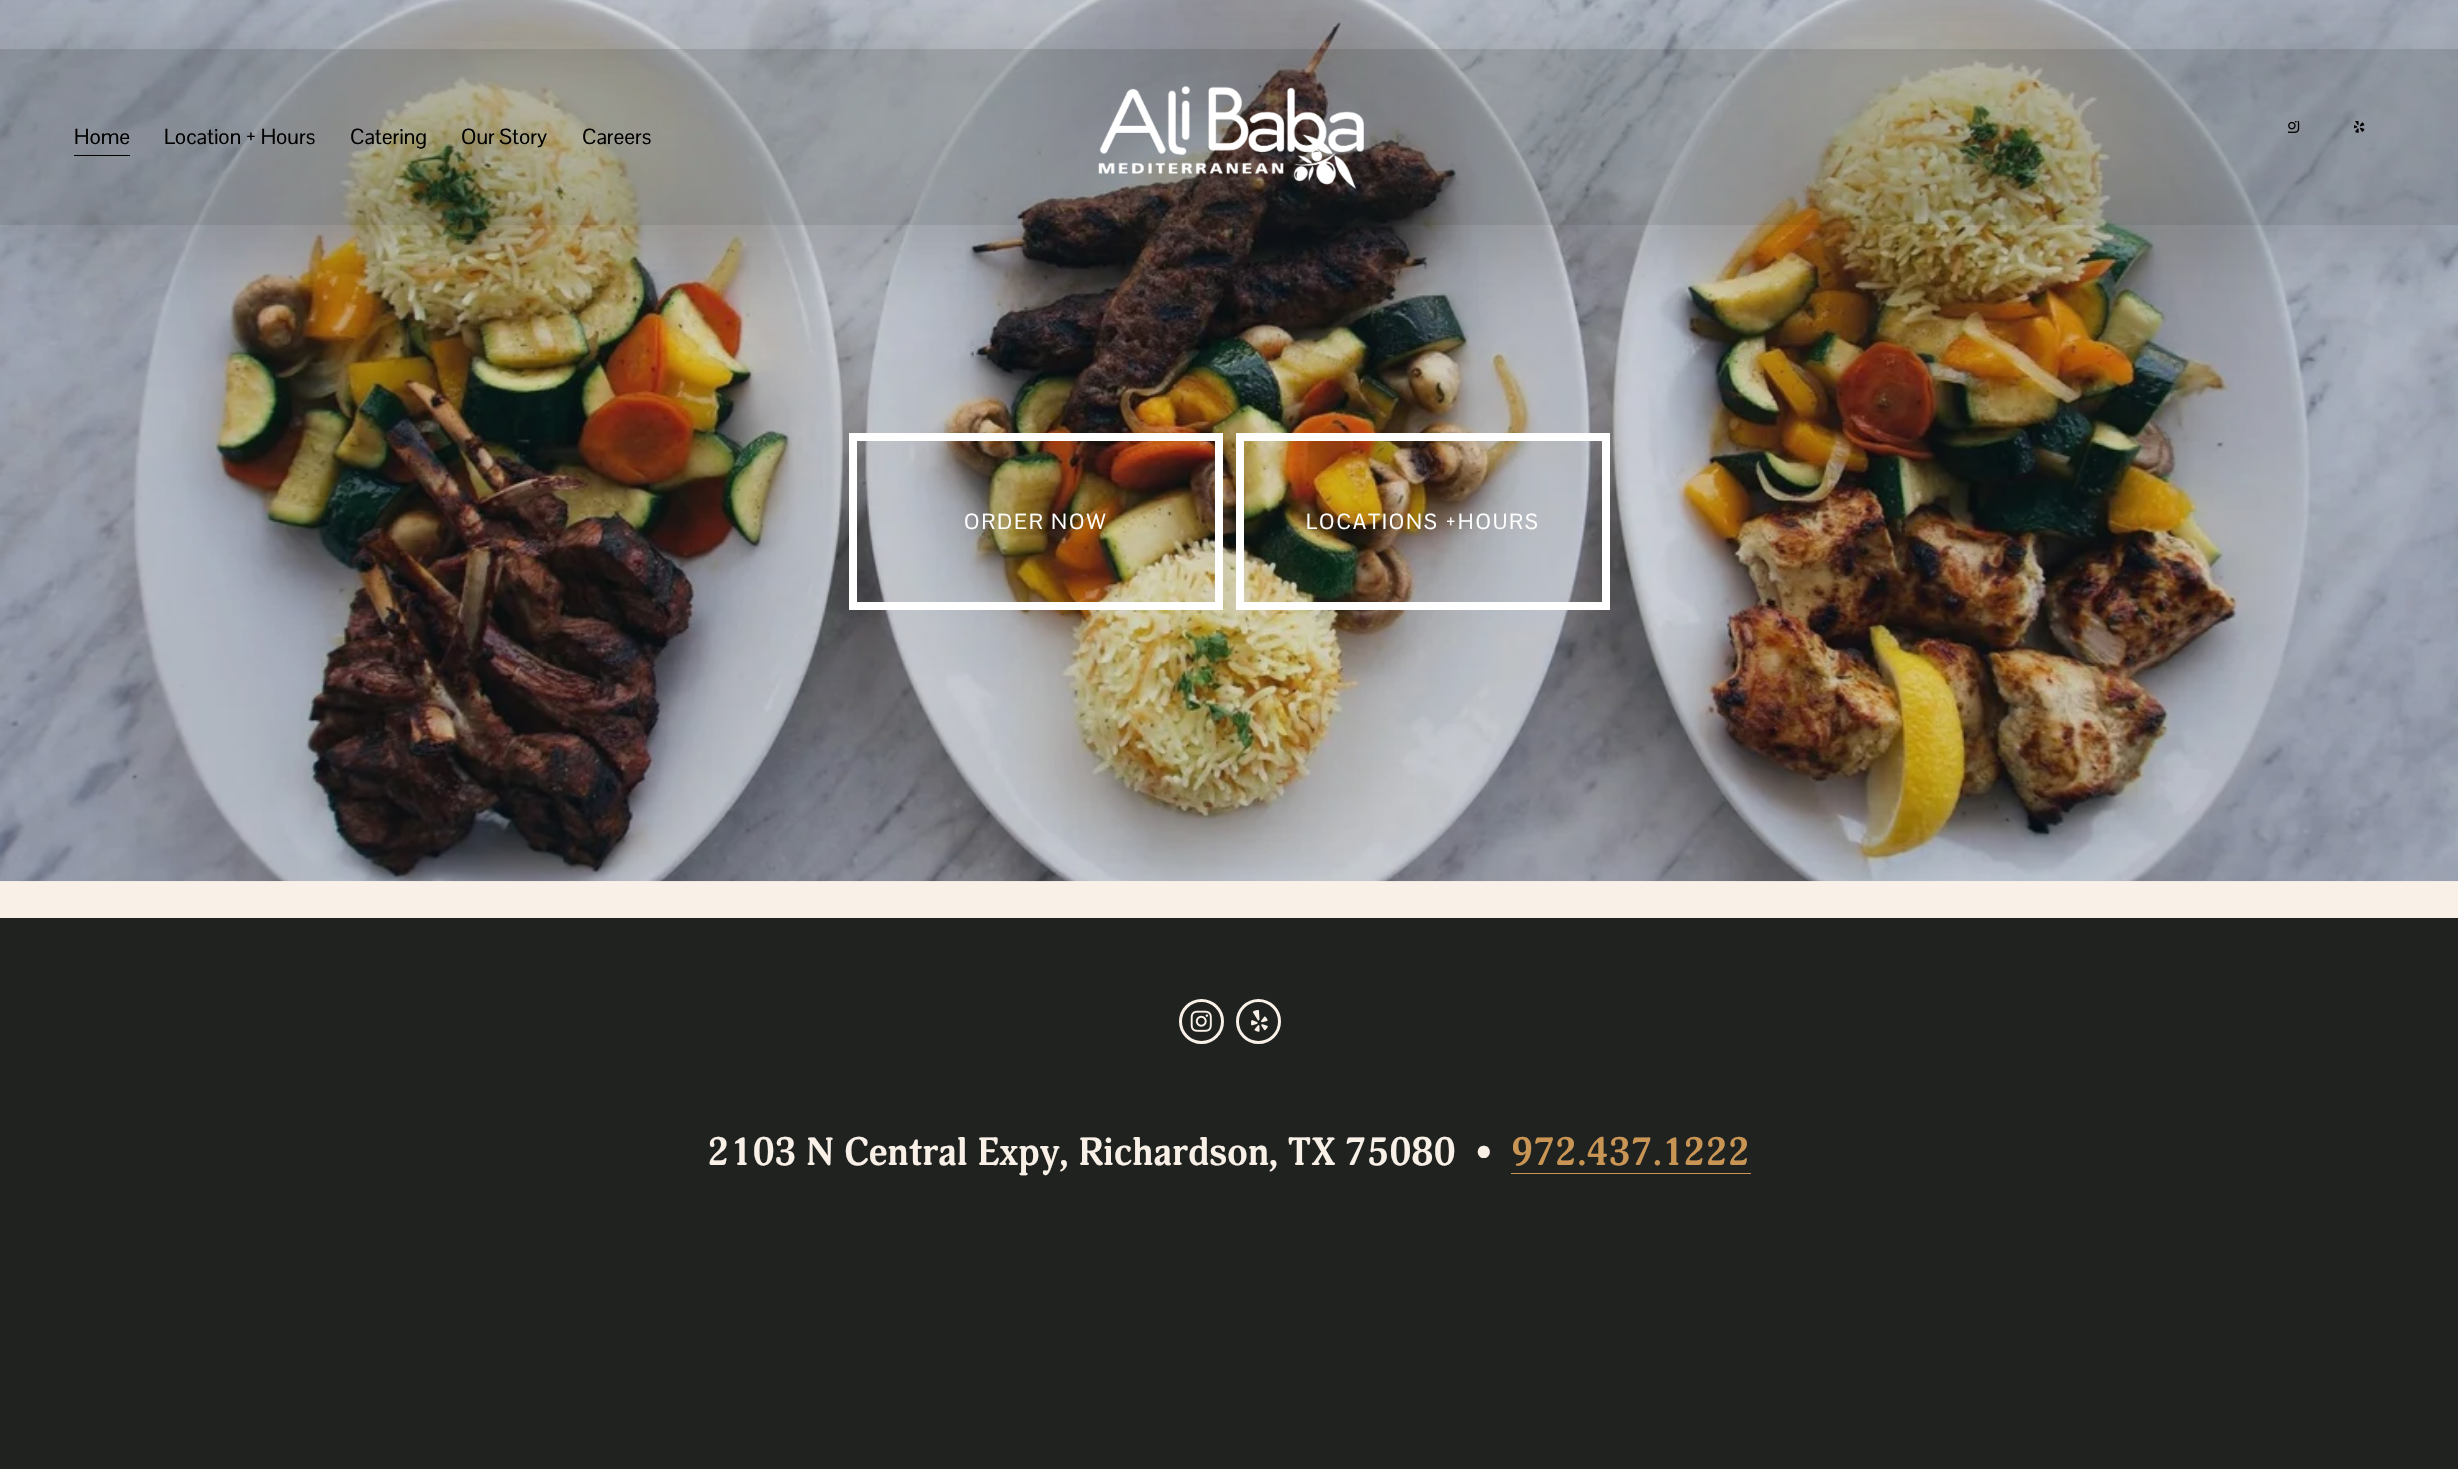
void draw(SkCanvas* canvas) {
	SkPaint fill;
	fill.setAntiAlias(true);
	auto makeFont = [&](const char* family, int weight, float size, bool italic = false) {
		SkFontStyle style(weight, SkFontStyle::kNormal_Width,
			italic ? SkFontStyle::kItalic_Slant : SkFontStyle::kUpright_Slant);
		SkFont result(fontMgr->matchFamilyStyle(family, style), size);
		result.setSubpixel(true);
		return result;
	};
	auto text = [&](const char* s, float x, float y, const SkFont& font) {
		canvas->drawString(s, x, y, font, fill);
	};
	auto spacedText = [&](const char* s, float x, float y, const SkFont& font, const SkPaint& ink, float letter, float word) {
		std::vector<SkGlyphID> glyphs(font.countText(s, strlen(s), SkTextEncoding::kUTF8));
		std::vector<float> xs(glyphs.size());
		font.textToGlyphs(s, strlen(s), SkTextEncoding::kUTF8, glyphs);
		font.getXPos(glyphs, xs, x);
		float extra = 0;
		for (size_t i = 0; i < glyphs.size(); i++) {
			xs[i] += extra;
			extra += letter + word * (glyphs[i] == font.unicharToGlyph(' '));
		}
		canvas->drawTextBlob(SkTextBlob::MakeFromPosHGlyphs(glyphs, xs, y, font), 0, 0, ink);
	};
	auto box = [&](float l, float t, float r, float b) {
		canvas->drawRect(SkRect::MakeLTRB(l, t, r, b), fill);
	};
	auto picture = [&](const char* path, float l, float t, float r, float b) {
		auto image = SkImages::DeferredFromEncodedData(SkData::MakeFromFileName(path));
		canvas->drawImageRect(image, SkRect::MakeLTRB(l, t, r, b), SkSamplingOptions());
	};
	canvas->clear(0xFFF9F1E8);
	picture("image3.png", 0, 0, 2458, 882);
	canvas->save();
	canvas->clipPath(SkPathBuilder(SkPathFillType::kEvenOdd).moveTo(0, 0).lineTo(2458, 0).lineTo(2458, 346).lineTo(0, 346).close().moveTo(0, 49).lineTo(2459, 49).lineTo(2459, 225).lineTo(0, 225).close().detach(), true);
	fill.setColor(0x26202220);
	fill.setMaskFilter(SkMaskFilter::MakeBlur(kNormal_SkBlurStyle, 30));
	canvas->drawRect(SkRect::MakeLTRB(-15, 49, 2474, 255), fill);
	fill.setMaskFilter(nullptr);
	canvas->restore();
	fill.setColor(0x33202220);
	box(0, 49, 2458, 225);
	fill.setColor(0xFF000000);
	box(74, 155, 130, 156);
	picture("image0.png", 1098, 85, 1364, 189);
	picture("image1.png", 2288, 121, 2300, 133);
	picture("image2.png", 2354, 121, 2365, 133);
	fill.setStyle(SkPaint::kStroke_Style);
	fill.setStrokeWidth(8);
	fill.setColor(0xFFFFFFFF);
	canvas->drawRect(SkRect::MakeLTRB(853, 437, 1219, 606), fill);
	canvas->drawRect(SkRect::MakeLTRB(1240, 437, 1606, 606), fill);
	fill.setStyle(SkPaint::kFill_Style);
	fill.setColor(0xFF202220);
	box(0, 918, 2458, 1469);
	fill.setStyle(SkPaint::kStroke_Style);
	fill.setStrokeWidth(3);
	fill.setColor(0xFFF9F1E8);
	canvas->drawCircle(1201.5f, 1021.5f, 21, fill);
	picture("image4.png", 1190, 1010, 1212, 1032);
	canvas->drawCircle(1258.5f, 1021.5f, 21, fill);
	picture("image5.png", 1251, 1010, 1268, 1032);
	fill.setStyle(SkPaint::kFill_Style);
	fill.setColor(0xFFC89555);
	box(1511, 1173, 1751, 1174);
	auto font1 = makeFont("Pontano Sans", 400, 21.25f);
	fill.setColor(0xFF000000);
	text("Home", 74, 144, font1);
	text("Location + Hours", 164, 144, font1);
	text("Catering", 350, 144, font1);
	text("Our Story", 461, 144, font1);
	text("Careers", 582, 144, font1);
	fill.setColor(0xFFFFFFFF);
	spacedText("ORDER NOW", 964, 529, font1, fill, 2.1f, 0);
	spacedText("LOCATIONS +HOURS", 1306, 529, font1, fill, 2.1f, 0);
	auto font2 = makeFont("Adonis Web", 700, 39);
	fill.setColor(0xFFF9F1E8);
	text("2103 N Central Expy, Richardson, TX 75080", 708, 1165, font2);
	auto font3 = makeFont("Adonis Web", 400, 39);
	text("•", 1473, 1165, font3);
	fill.setColor(0xFFC89555);
	text("972.437.1222", 1511, 1165, font2);
}
